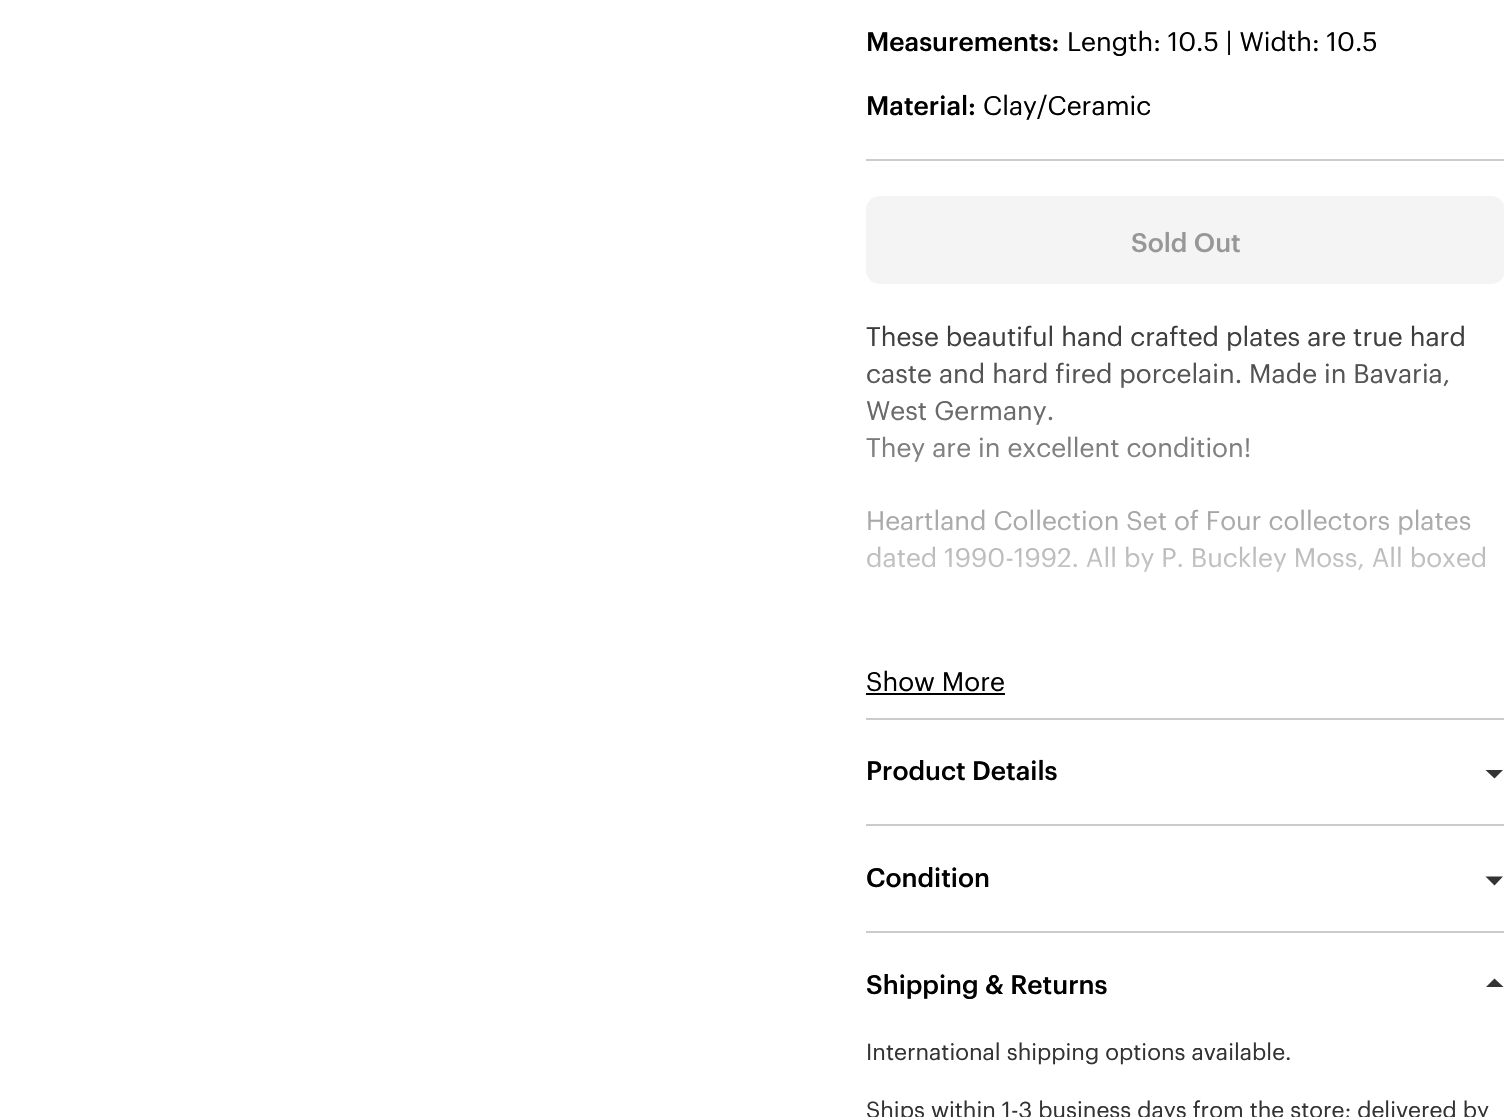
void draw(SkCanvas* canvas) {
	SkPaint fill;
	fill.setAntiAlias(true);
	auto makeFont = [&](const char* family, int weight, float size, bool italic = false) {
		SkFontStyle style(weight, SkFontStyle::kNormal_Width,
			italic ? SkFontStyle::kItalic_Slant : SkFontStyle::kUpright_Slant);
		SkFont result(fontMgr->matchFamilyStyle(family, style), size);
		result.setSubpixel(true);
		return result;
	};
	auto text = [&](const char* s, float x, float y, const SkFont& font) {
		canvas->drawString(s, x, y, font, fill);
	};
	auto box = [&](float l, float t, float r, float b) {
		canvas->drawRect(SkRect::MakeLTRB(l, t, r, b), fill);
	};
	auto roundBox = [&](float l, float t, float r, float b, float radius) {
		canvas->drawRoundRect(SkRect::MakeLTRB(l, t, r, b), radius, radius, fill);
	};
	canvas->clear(0xFFFFFFFF);
	fill.setColor(0xFFCBCBCB);
	box(866, 159, 1504, 161);
	fill.setColor(0xFFF4F4F4);
	roundBox(866, 196, 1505, 284, 14);
	fill.setColor(0xFF000000);
	box(866, 693, 1005, 695);
	fill.setColor(0xFFCBCBCB);
	box(866, 718, 1504, 720);
	fill.setColor(0xFF333333);
	canvas->drawPath(SkPathBuilder(SkPathFillType::kEvenOdd).moveTo(1503, 770).lineTo(1494.5f, 778.5f).lineTo(1485.5f, 770).close().detach(), fill);
	fill.setColor(0xFFCBCBCB);
	box(866, 824, 1504, 826);
	fill.setColor(0xFF333333);
	canvas->drawPath(SkPathBuilder(SkPathFillType::kEvenOdd).moveTo(1503, 876.5f).lineTo(1494.5f, 885.5f).lineTo(1485.5f, 876.5f).close().detach(), fill);
	fill.setColor(0xFFCBCBCB);
	box(866, 931, 1504, 933);
	fill.setColor(0xFF333333);
	canvas->drawPath(SkPathBuilder(SkPathFillType::kEvenOdd).moveTo(1486, 987).lineTo(1494.5f, 978.5f).lineTo(1503.5f, 987).close().detach(), fill);
	auto font1 = makeFont("Graphik", 500, 26.25f);
	fill.setColor(0xFF000000);
	text("Measurements:", 866, 51, font1);
	auto font2 = makeFont("Graphik", 400, 26.25f);
	text("Length: 10.5 | Width: 10.5", 1067, 51, font2);
	text("Material:", 866, 115, font1);
	text("Clay/Ceramic", 983, 115, font2);
	fill.setColor(0xFF979797);
	text("Sold Out", 1131, 252, font1);
	fill.setColor(0xFF333333);
	text("These beautiful hand crafted plates are true hard", 866, 346, font2);
	text("caste and hard fired porcelain. Made in Bavaria,", 866, 383, font2);
	text("West Germany.", 866, 420, font2);
	text("They are in excellent condition!", 866, 457, font2);
	text("Heartland Collection Set of Four collectors plates", 866, 530, font2);
	text("dated 1990-1992. All by P. Buckley Moss, All boxed", 866, 567, font2);
	{
		const SkColor colors[] = {0x00FFFFFF, 0xFFFFFFFF};
		const float stops[] = {0, 1};
		const SkPoint ends[] = {{1186, 318}, {1186, 669}};
		fill.setShader(SkGradientShader::MakeLinear(ends, colors, stops, 2, SkTileMode::kClamp));
		fill.setAlpha(255);
	}
	box(867, 326, 1486, 572);
	fill.setShader(nullptr);
	fill.setColor(0xFF000000);
	text("Show More", 866, 691, font2);
	text("Product Details", 866, 780, font1);
	text("Condition", 866, 887, font1);
	text("Shipping & Returns", 866, 994, font1);
	auto font3 = makeFont("Graphik", 400, 22.75f);
	fill.setColor(0xFF333333);
	text("International shipping options available.", 866, 1060, font3);
	text("Ships within 1-3 business days from the store; delivered by", 866, 1118, font3);
}
